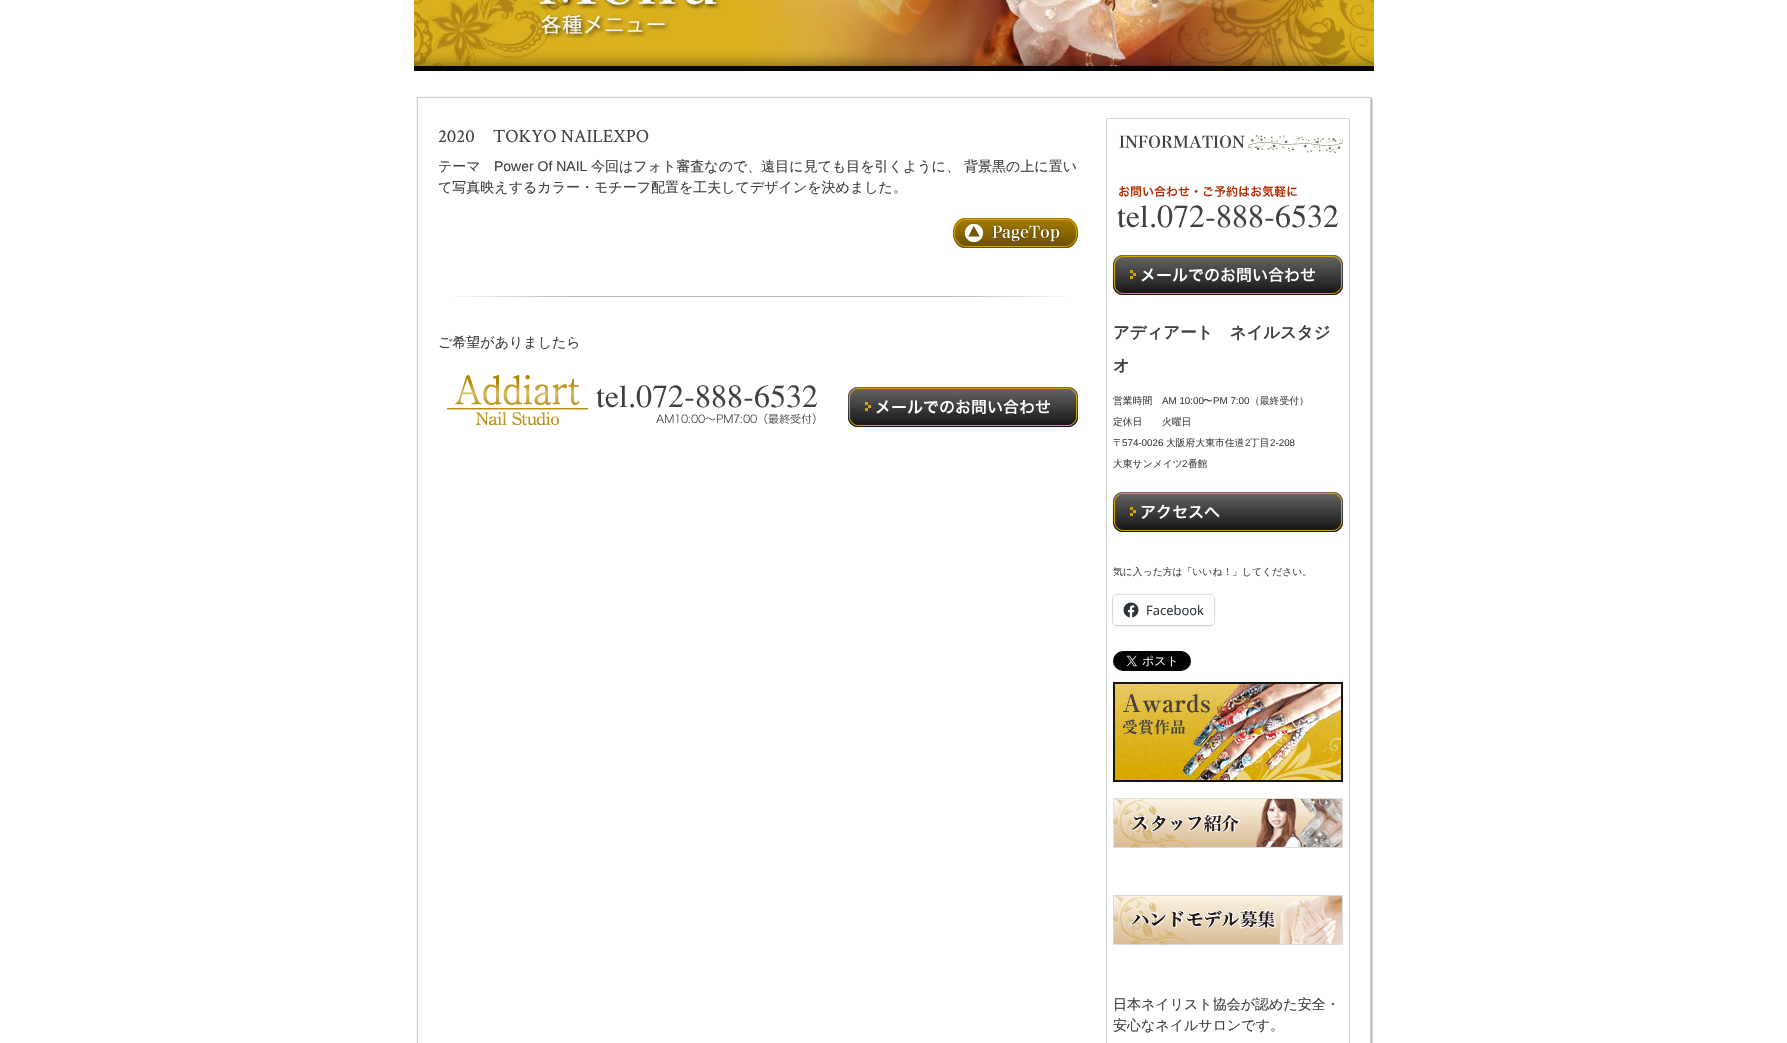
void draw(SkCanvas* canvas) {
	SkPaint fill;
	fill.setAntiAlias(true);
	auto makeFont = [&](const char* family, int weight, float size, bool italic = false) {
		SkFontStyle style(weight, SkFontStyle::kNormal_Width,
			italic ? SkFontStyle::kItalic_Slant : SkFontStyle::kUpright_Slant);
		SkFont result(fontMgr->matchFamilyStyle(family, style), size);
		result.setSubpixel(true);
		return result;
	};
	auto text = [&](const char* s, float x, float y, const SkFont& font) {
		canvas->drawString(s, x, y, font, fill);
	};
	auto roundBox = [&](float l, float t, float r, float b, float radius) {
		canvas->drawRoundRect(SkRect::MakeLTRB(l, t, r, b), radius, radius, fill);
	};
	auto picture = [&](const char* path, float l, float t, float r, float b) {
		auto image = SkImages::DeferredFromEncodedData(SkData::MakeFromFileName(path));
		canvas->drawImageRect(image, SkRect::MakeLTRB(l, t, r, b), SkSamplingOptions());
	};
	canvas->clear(0xFFFFFFFF);
	picture("image0.png", 414, 0, 1374, 71);
	canvas->save();
	canvas->clipPath(SkPathBuilder(SkPathFillType::kEvenOdd).moveTo(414, 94).lineTo(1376, 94).lineTo(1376, 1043).lineTo(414, 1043).close().moveTo(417, 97).lineTo(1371, 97).lineTo(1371, 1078).lineTo(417, 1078).close().detach(), true);
	fill.setColor(0x66000000);
	fill.setMaskFilter(SkMaskFilter::MakeBlur(kNormal_SkBlurStyle, 1));
	canvas->drawRect(SkRect::MakeLTRB(418, 98, 1372, 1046), fill);
	fill.setMaskFilter(nullptr);
	canvas->restore();
	fill.setStyle(SkPaint::kStroke_Style);
	fill.setStrokeWidth(1);
	fill.setColor(0xFFCCCCCC);
	canvas->drawRect(SkRect::MakeLTRB(417.5f, 97.5f, 1370.5f, 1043.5f), fill);
	picture("image1.png", 953, 218, 1078, 248);
	picture("image2.png", 451, 296, 1068, 297);
	picture("image3.png", 447, 375, 817, 425);
	picture("image4.png", 848, 387, 1078, 427);
	fill.setColor(0xFFD5D5D5);
	canvas->drawRect(SkRect::MakeLTRB(1106.5f, 118.5f, 1349.5f, 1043.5f), fill);
	picture("image5.png", 1119, 135, 1343, 153);
	picture("image6.png", 1117, 185, 1338, 228);
	picture("image4.png", 1113, 255, 1343, 295);
	picture("image7.png", 1113, 492, 1343, 532);
	fill.setColor(0xFFE0E0E0);
	canvas->drawRoundRect(SkRect::MakeLTRB(1112.5f, 594.5f, 1214.5f, 625.5f), 4.5f, 4.5f, fill);
	fill.setStyle(SkPaint::kFill_Style);
	fill.setColor(0x1F000000);
	fill.setMaskFilter(SkMaskFilter::MakeBlur(kNormal_SkBlurStyle, 1));
	canvas->drawRoundRect(SkRect::MakeLTRB(1113, 596, 1214, 626), 4, 4, fill);
	fill.setMaskFilter(nullptr);
	fill.setColor(0xFFFFFFFF);
	roundBox(1113, 595, 1214, 625, 4);
	picture("image8.png", 1123, 602, 1139, 618);
	picture("image9.png", 1113, 651, 1191, 671);
	picture("image10.png", 1113, 682, 1343, 782);
	picture("image11.png", 1113, 798, 1343, 848);
	picture("image12.png", 1113, 895, 1343, 945);
	auto font1 = makeFont("Crimson Text", 400, 18.75f);
	fill.setColor(0xFF3F3F3F);
	text("2020", 438, 142, font1);
	text("TOKYO NAILEXPO", 493, 142, font1);
	auto font2 = makeFont("WenQuanYi Zen Hei", 500, 14);
	text("テーマ", 438, 171, font2);
	auto font3 = makeFont("Liberation Sans", 400, 14);
	text("Power Of NAIL", 494, 171, font3);
	text("今回はフォト審査なので、遠目に見ても目を引くように、", 591, 171, font2);
	text("背景黒の上に置い", 964, 171, font2);
	text("て写真映えするカラー・モチーフ配置を工夫してデザインを決めました。", 438, 192, font2);
	text("ご希望がありましたら", 438, 347, font2);
	auto font4 = makeFont("WenQuanYi Zen Hei", 700, 16.4f);
	text("アディアート　ネイルスタジ", 1113, 338, font4);
	text("オ", 1113, 371, font4);
	auto font5 = makeFont("WenQuanYi Zen Hei", 500, 9.8f);
	text("営業時間", 1113, 404, font5);
	auto font6 = makeFont("Liberation Sans", 400, 9.8f);
	text("AM 10:00", 1162, 404, font6);
	text("〜", 1203, 404, font5);
	text("PM 7:00", 1213, 404, font6);
	text("（最終受付）", 1250, 404, font5);
	text("定休日　　火曜日", 1113, 425, font5);
	text("〒", 1113, 446, font5);
	text("574-0026", 1122, 446, font6);
	text("大阪府大東市住道", 1166, 446, font5);
	text("2", 1245, 446, font6);
	text("丁目", 1250, 446, font5);
	text("2-208", 1270, 446, font6);
	text("大東サンメイツ", 1113, 467, font5);
	text("2", 1182, 467, font6);
	text("番館", 1188, 467, font5);
	text("気に入った方は「いいね！」してください。", 1113, 575, font5);
	auto font7 = makeFont("Open Sans", 400, 13);
	fill.setColor(0xFF2C3338);
	text("Facebook", 1146, 615, font7);
	fill.setColor(0xFF3F3F3F);
	text("日本ネイリスト協会が認めた安全・", 1113, 1009, font2);
	text("安心なネイルサロンです。", 1113, 1030, font2);
}
